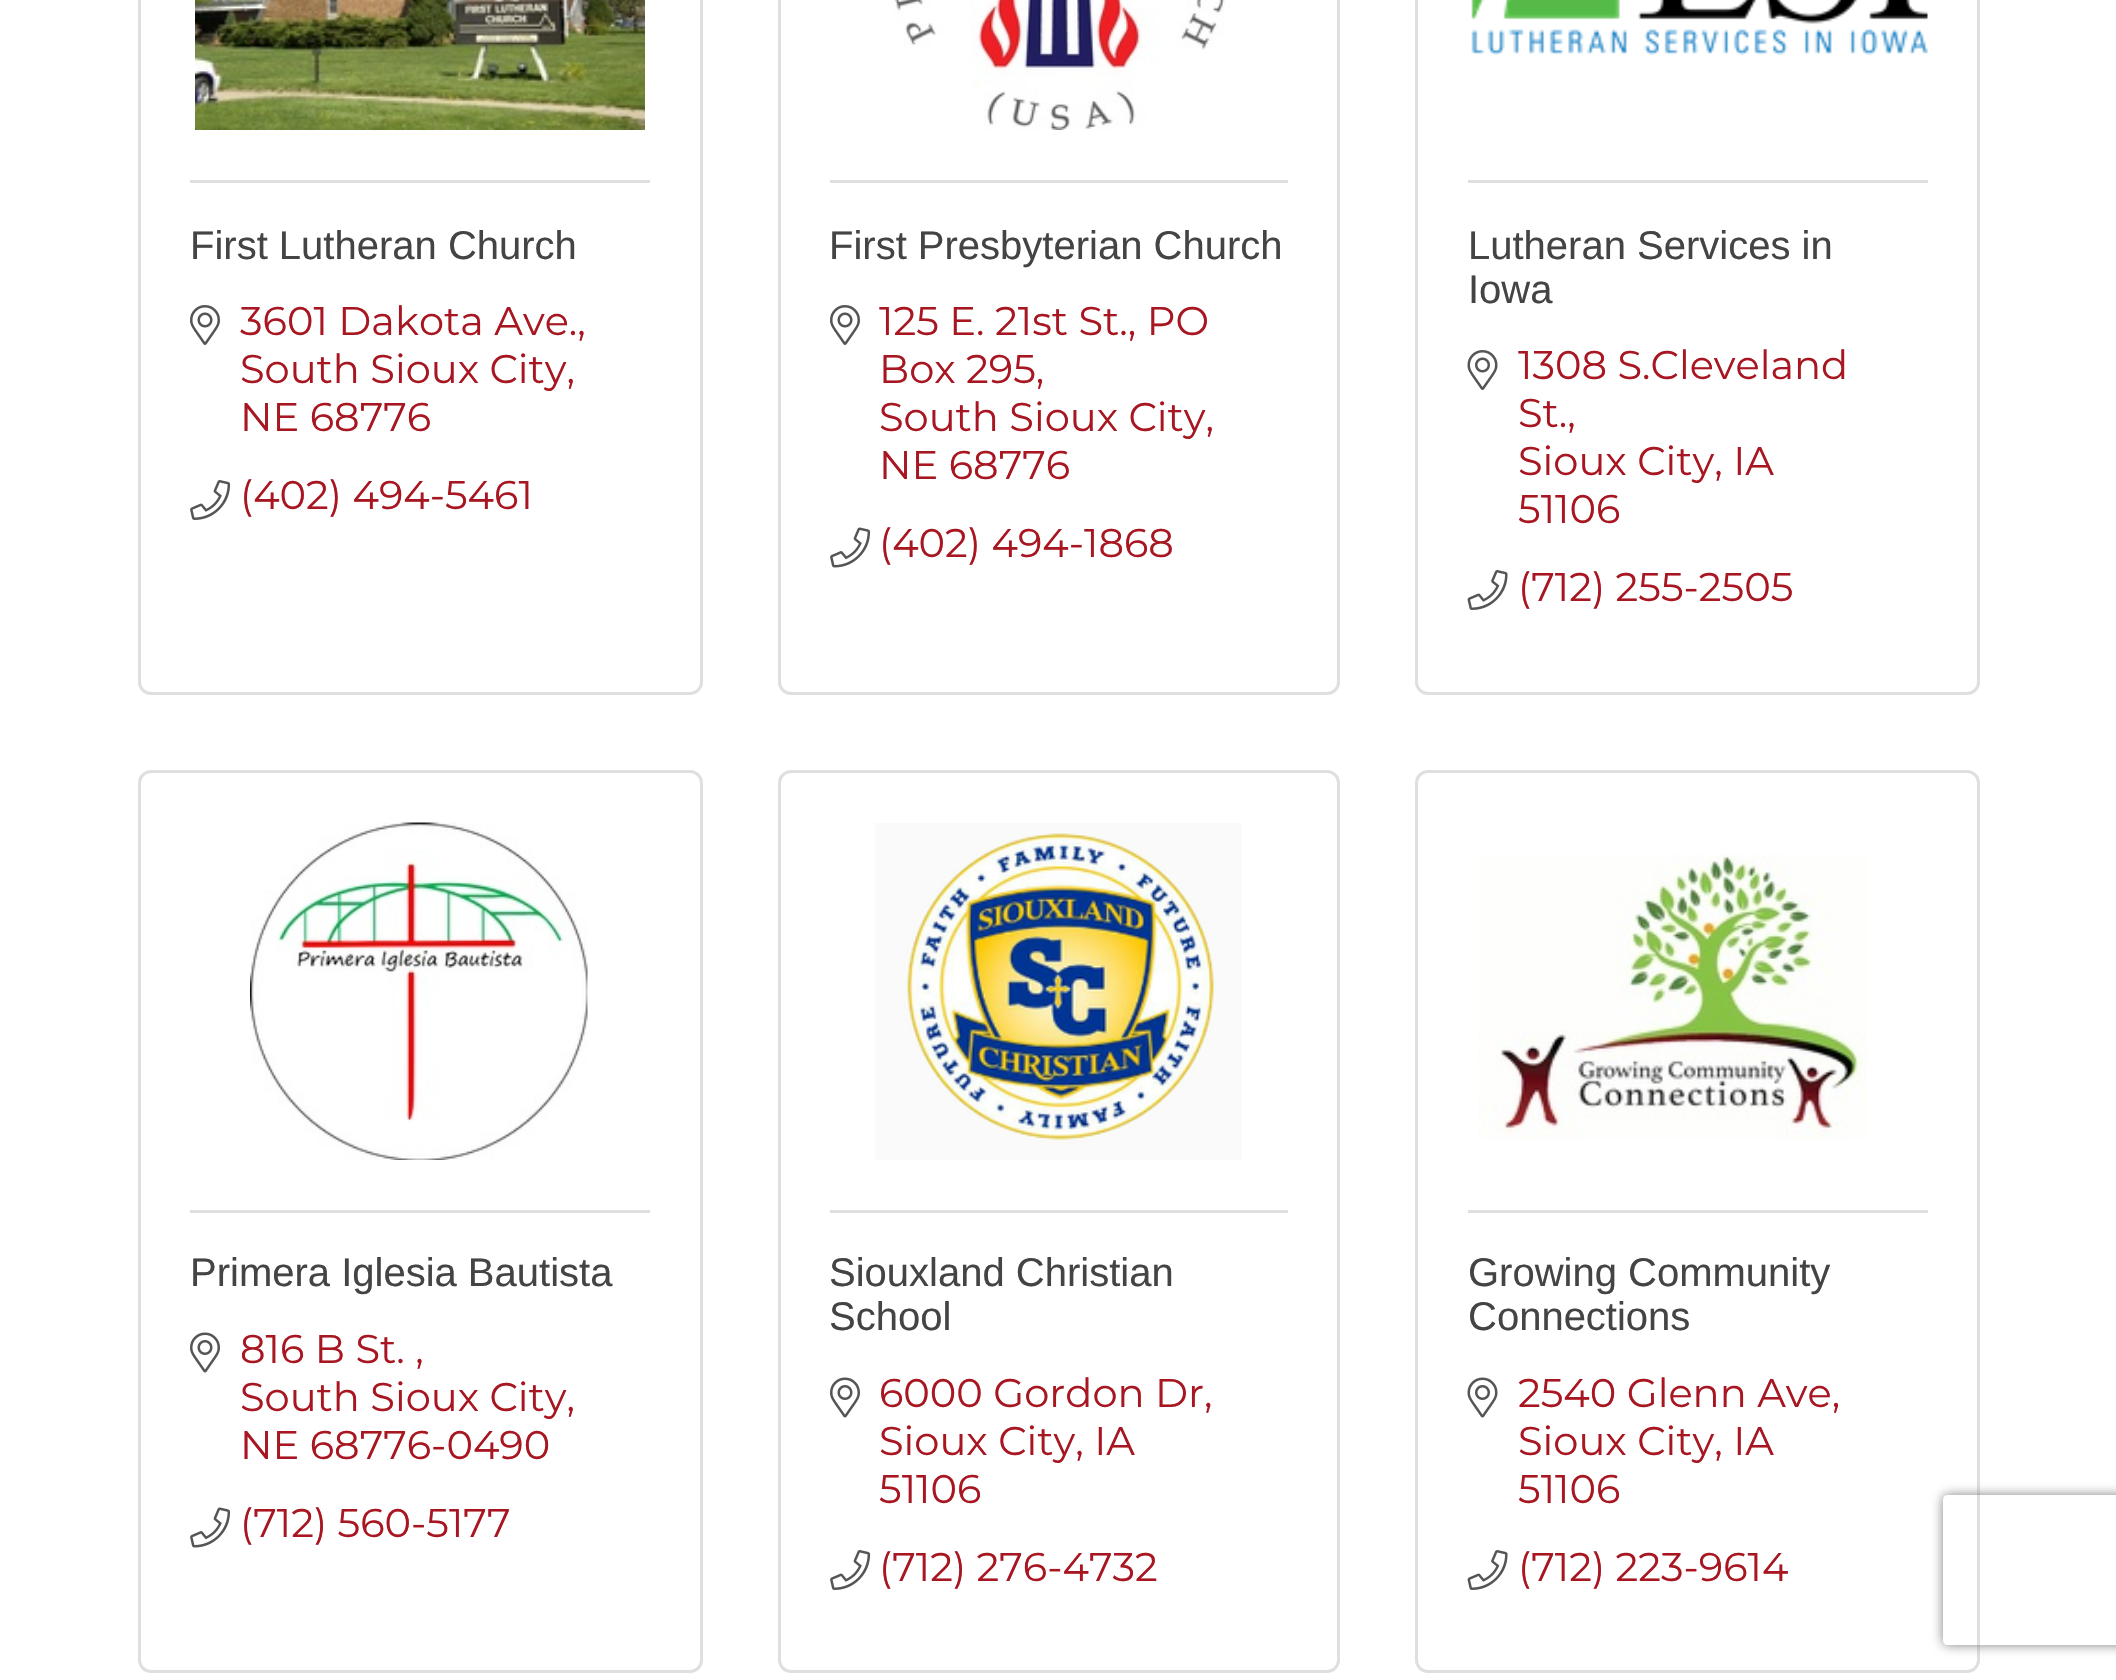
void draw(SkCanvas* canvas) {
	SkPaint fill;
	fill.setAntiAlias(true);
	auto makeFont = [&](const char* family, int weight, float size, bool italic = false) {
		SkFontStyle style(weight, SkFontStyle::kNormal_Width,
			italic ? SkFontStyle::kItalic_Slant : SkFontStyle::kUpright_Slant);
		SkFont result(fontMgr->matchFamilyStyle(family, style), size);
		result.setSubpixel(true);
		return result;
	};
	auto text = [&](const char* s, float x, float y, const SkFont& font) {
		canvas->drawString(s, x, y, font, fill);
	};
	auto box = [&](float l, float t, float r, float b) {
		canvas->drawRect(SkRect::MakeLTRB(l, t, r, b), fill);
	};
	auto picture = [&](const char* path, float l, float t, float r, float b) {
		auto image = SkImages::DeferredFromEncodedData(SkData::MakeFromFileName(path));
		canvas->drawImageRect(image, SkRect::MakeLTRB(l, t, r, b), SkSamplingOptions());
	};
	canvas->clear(0xFFFFFFFF);
	fill.setStyle(SkPaint::kStroke_Style);
	fill.setStrokeWidth(3);
	fill.setColor(0xFFDFDFDF);
	canvas->drawRoundRect(SkRect::MakeLTRB(139.5f, -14.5f, 701.5f, 693.5f), 11.5f, 11.5f, fill);
	picture("image0.png", 195, 0, 645, 130);
	fill.setStyle(SkPaint::kFill_Style);
	box(190, 180, 650, 183);
	picture("image1.png", 190, 305, 220, 345);
	picture("image2.png", 190, 480, 231, 520);
	fill.setStyle(SkPaint::kStroke_Style);
	canvas->drawRoundRect(SkRect::MakeLTRB(779.5f, -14.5f, 1338.5f, 693.5f), 11.5f, 11.5f, fill);
	picture("image3.png", 894, 0, 1225, 130);
	fill.setStyle(SkPaint::kFill_Style);
	box(830, 180, 1288, 183);
	picture("image1.png", 830, 305, 860, 345);
	picture("image4.png", 830, 527, 871, 568);
	fill.setStyle(SkPaint::kStroke_Style);
	canvas->drawRoundRect(SkRect::MakeLTRB(1416.5f, -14.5f, 1978.5f, 693.5f), 11.5f, 11.5f, fill);
	picture("image5.png", 1471, 0, 1928, 55);
	fill.setStyle(SkPaint::kFill_Style);
	box(1468, 180, 1928, 183);
	picture("image6.png", 1467, 350, 1498, 390);
	picture("image7.png", 1467, 570, 1508, 610);
	fill.setStyle(SkPaint::kStroke_Style);
	canvas->drawRoundRect(SkRect::MakeLTRB(139.5f, 771.5f, 701.5f, 1671.5f), 11.5f, 11.5f, fill);
	picture("image8.png", 250, 822, 588, 1160);
	fill.setStyle(SkPaint::kFill_Style);
	box(190, 1210, 650, 1213);
	picture("image9.png", 190, 1332, 220, 1373);
	picture("image4.png", 190, 1507, 231, 1548);
	fill.setStyle(SkPaint::kStroke_Style);
	canvas->drawRoundRect(SkRect::MakeLTRB(779.5f, 771.5f, 1338.5f, 1671.5f), 11.5f, 11.5f, fill);
	picture("image10.png", 875, 823, 1242, 1160);
	fill.setStyle(SkPaint::kFill_Style);
	box(830, 1210, 1288, 1213);
	picture("image9.png", 830, 1377, 860, 1418);
	picture("image2.png", 830, 1550, 871, 1590);
	fill.setStyle(SkPaint::kStroke_Style);
	canvas->drawRoundRect(SkRect::MakeLTRB(1416.5f, 771.5f, 1978.5f, 1671.5f), 11.5f, 11.5f, fill);
	picture("image11.png", 1478, 854, 1867, 1140);
	fill.setStyle(SkPaint::kFill_Style);
	box(1468, 1210, 1928, 1213);
	picture("image12.png", 1467, 1377, 1498, 1418);
	picture("image7.png", 1467, 1550, 1508, 1590);
	canvas->save();
	canvas->clipPath(SkPathBuilder(SkPathFillType::kEvenOdd).moveTo(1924, 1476).lineTo(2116, 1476).lineTo(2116, 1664).lineTo(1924, 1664).close().moveTo(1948, 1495).lineTo(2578, 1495).cubicTo(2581, 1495, 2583, 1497, 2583, 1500).lineTo(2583, 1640).cubicTo(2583, 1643, 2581, 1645, 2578, 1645).lineTo(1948, 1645).cubicTo(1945, 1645, 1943, 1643, 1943, 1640).lineTo(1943, 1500).cubicTo(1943, 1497, 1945, 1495, 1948, 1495).close().detach(), true);
	fill.setColor(0xFF808080);
	fill.setMaskFilter(SkMaskFilter::MakeBlur(kNormal_SkBlurStyle, 6));
	canvas->drawRoundRect(SkRect::MakeLTRB(1943, 1495, 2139, 1645), 5, 5, fill);
	fill.setMaskFilter(nullptr);
	canvas->restore();
	auto font1 = makeFont("Liberation Sans", 400, 40);
	fill.setColor(0xFF444444);
	text("First Lutheran Church", 190, 259, font1);
	auto font2 = makeFont("Montserrat", 400, 40);
	fill.setColor(0xFFA81721);
	text("3601 Dakota Ave.,", 240, 335, font2);
	text("South Sioux City,", 240, 383, font2);
	text("NE 68776", 240, 431, font2);
	text("(402) 494-5461", 240, 509, font2);
	fill.setColor(0xFF444444);
	text("First Presbyterian Church", 829, 259, font1);
	fill.setColor(0xFFA81721);
	text("125 E. 21st St., PO", 879, 335, font2);
	text("Box 295,", 879, 383, font2);
	text("South Sioux City,", 879, 431, font2);
	text("NE 68776", 879, 479, font2);
	text("(402) 494-1868", 879, 557, font2);
	fill.setColor(0xFF444444);
	text("Lutheran Services in", 1468, 259, font1);
	text("Iowa", 1468, 303, font1);
	fill.setColor(0xFFA81721);
	text("1308 S.Cleveland", 1518, 379, font2);
	text("St.,", 1518, 427, font2);
	text("Sioux City, IA", 1518, 475, font2);
	text("51106", 1518, 523, font2);
	text("(712) 255-2505", 1518, 601, font2);
	fill.setColor(0xFF444444);
	text("Primera Iglesia Bautista", 190, 1286, font1);
	fill.setColor(0xFFA81721);
	text("816 B St. ,", 240, 1363, font2);
	text("South Sioux City,", 240, 1411, font2);
	text("NE 68776-0490", 240, 1459, font2);
	text("(712) 560-5177", 240, 1537, font2);
	fill.setColor(0xFF444444);
	text("Siouxland Christian", 829, 1286, font1);
	text("School", 829, 1330, font1);
	fill.setColor(0xFFA81721);
	text("6000 Gordon Dr,", 879, 1407, font2);
	text("Sioux City, IA", 879, 1455, font2);
	text("51106", 879, 1503, font2);
	text("(712) 276-4732", 879, 1581, font2);
	fill.setColor(0xFF444444);
	text("Growing Community", 1468, 1286, font1);
	text("Connections", 1468, 1330, font1);
	fill.setColor(0xFFA81721);
	text("2540 Glenn Ave,", 1518, 1407, font2);
	text("Sioux City, IA", 1518, 1455, font2);
	text("51106", 1518, 1503, font2);
	text("(712) 223-9614", 1518, 1581, font2);
}
